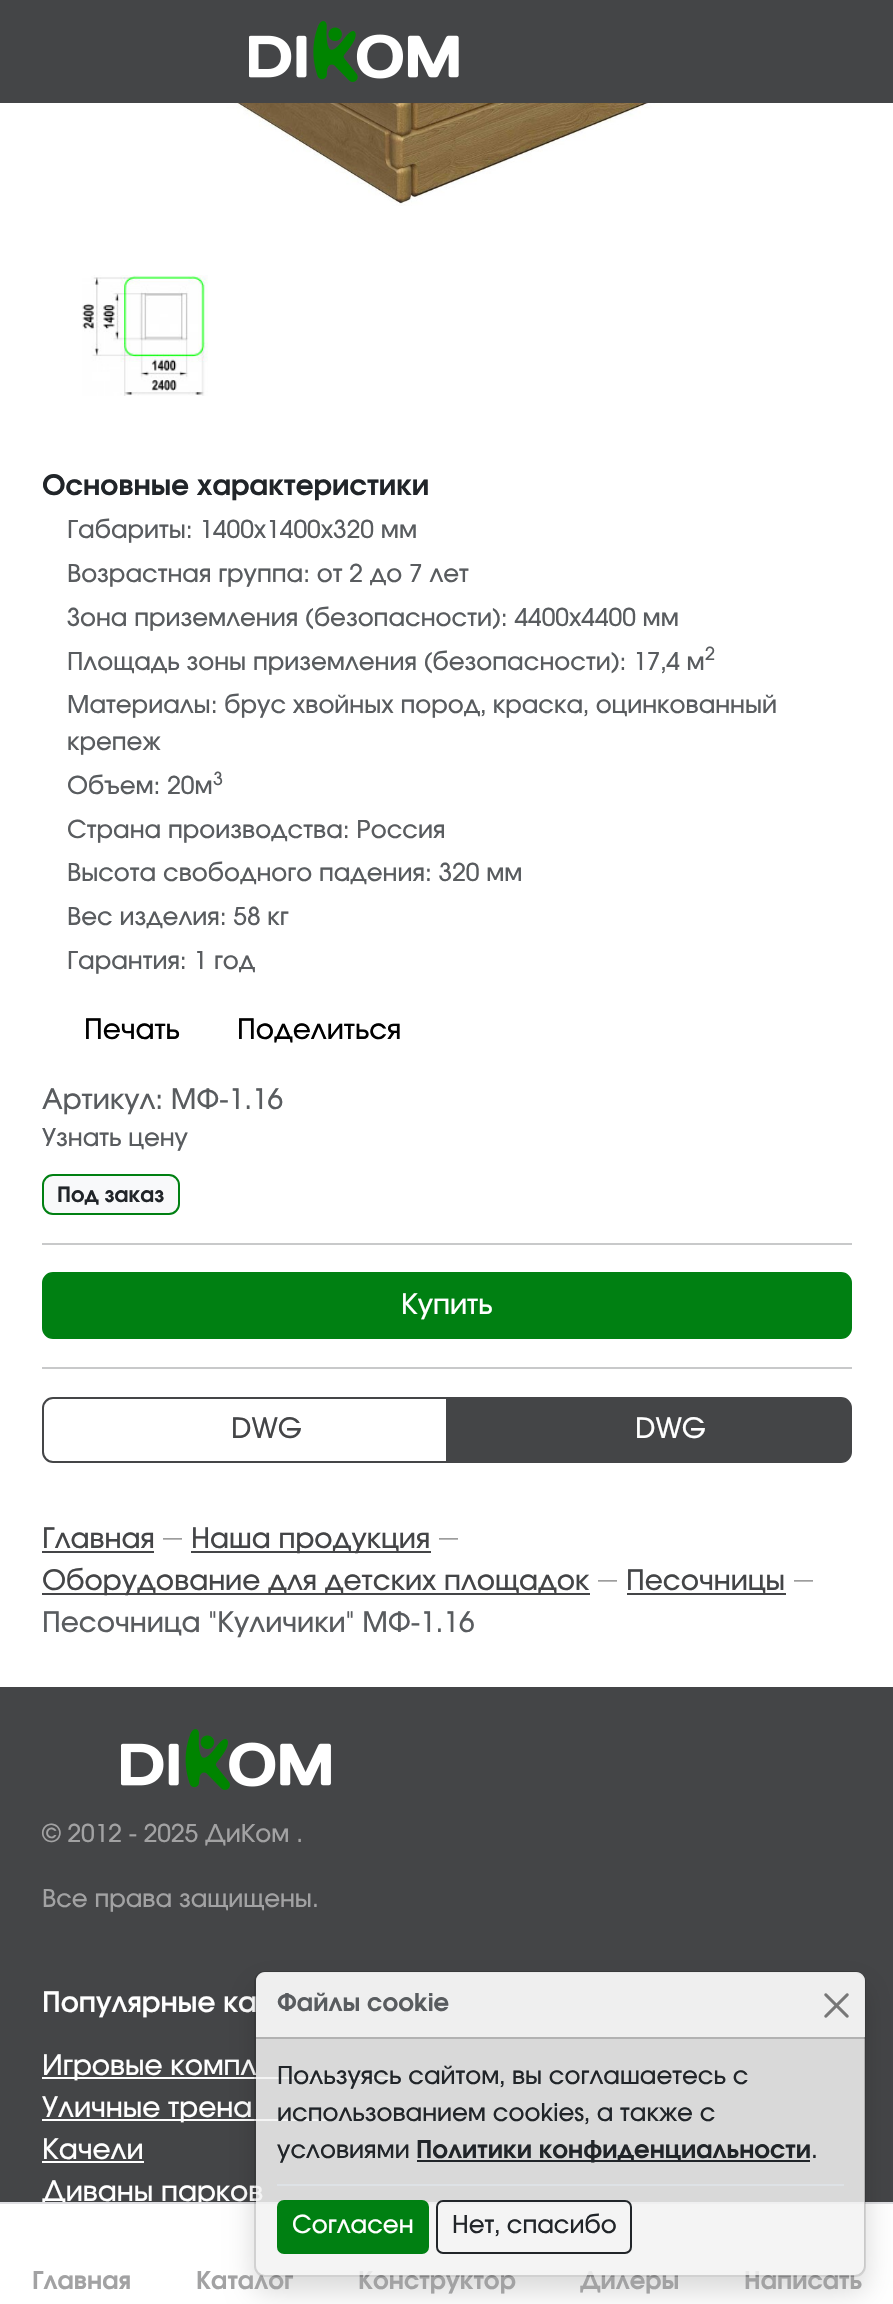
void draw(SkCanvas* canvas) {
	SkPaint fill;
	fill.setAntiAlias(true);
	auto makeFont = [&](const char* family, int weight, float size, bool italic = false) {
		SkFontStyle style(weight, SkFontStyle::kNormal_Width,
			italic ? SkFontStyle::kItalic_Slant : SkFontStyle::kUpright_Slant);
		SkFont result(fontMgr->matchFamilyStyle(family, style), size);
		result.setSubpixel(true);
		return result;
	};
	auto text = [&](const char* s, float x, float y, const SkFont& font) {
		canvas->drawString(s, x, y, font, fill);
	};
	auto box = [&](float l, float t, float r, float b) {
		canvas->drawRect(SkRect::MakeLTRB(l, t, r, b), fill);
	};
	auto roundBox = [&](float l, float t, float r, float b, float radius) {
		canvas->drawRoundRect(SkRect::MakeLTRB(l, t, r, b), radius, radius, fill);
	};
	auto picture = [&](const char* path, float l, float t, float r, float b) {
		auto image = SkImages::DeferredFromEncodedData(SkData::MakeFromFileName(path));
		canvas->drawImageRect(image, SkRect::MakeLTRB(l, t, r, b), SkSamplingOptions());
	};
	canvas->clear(0xFFFFFFFF);
	fill.setColor(0xFF444547);
	box(0, 0, 893, 103);
	picture("image0.png", 249, 21, 459, 82);
	picture("image1.png", 118, 103, 782, 206);
	picture("image2.png", 82, 275, 208, 396);
	fill.setColor(0xFFF8F9FA);
	canvas->drawRoundRect(SkRect::MakeLTRB(43, 1175, 179, 1214), 10, 10, fill);
	fill.setStyle(SkPaint::kStroke_Style);
	fill.setStrokeWidth(2);
	fill.setColor(0xFF008012);
	canvas->drawRoundRect(SkRect::MakeLTRB(43, 1175, 179, 1214), 10, 10, fill);
	fill.setStyle(SkPaint::kFill_Style);
	fill.setColor(0xFFC8C9CA);
	box(42, 1243, 852, 1245);
	fill.setColor(0xFF008012);
	canvas->drawRoundRect(SkRect::MakeLTRB(43, 1273, 851, 1338), 10, 10, fill);
	fill.setStyle(SkPaint::kStroke_Style);
	canvas->drawRoundRect(SkRect::MakeLTRB(43, 1273, 851, 1338), 10, 10, fill);
	fill.setStyle(SkPaint::kFill_Style);
	fill.setColor(0xFFC8C9CA);
	box(42, 1367, 852, 1369);
	fill.setStyle(SkPaint::kStroke_Style);
	fill.setColor(0xFF444547);
	canvas->drawPath(SkPathBuilder().moveTo(53, 1398).lineTo(447, 1398).lineTo(447, 1462).lineTo(53, 1462).cubicTo(47.5f, 1462, 43, 1457.5f, 43, 1452).lineTo(43, 1408).cubicTo(43, 1402.5f, 47.5f, 1398, 53, 1398).close().detach(), fill);
	fill.setStyle(SkPaint::kFill_Style);
	canvas->drawPath(SkPathBuilder().moveTo(447, 1398).lineTo(841, 1398).cubicTo(846.5f, 1398, 851, 1402.5f, 851, 1408).lineTo(851, 1452).cubicTo(851, 1457.5f, 846.5f, 1462, 841, 1462).lineTo(447, 1462).close().detach(), fill);
	fill.setStyle(SkPaint::kStroke_Style);
	canvas->drawPath(SkPathBuilder().moveTo(447, 1398).lineTo(841, 1398).cubicTo(846.5f, 1398, 851, 1402.5f, 851, 1408).lineTo(851, 1452).cubicTo(851, 1457.5f, 846.5f, 1462, 841, 1462).lineTo(447, 1462).close().detach(), fill);
	fill.setStyle(SkPaint::kFill_Style);
	box(42, 1551, 154, 1553);
	box(191, 1551, 431, 1553);
	box(42, 1593, 590, 1595);
	box(627, 1593, 786, 1595);
	box(0, 1687, 893, 2202);
	picture("image3.png", 121, 1729, 331, 1790);
	fill.setColor(0xFFFFFFFF);
	box(42, 2077, 394, 2079);
	box(42, 2119, 329, 2121);
	box(42, 2161, 144, 2163);
	auto font1 = makeFont("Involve", 700, 28);
	fill.setColor(0xFF212529);
	text("Основные характеристики", 42, 495, font1);
	auto font2 = makeFont("Involve", 500, 24.5f);
	fill.setColor(0xFF595C5F);
	text("Габариты: 1400х1400х320 мм", 67, 538, font2);
	text("Возрастная группа: от 2 до 7 лет", 67, 582, font2);
	text("Зона приземления (безопасности): 4400х4400 мм", 67, 626, font2);
	text("Площадь зоны приземления (безопасности): 17,4 м", 67, 670, font2);
	auto font3 = makeFont("Involve", 500, 18);
	text("2", 705, 660, font3);
	text("Материалы: брус хвойных пород, краска, оцинкованный", 67, 713, font2);
	text("крепеж", 67, 750, font2);
	text("Объем: 20м", 67, 794, font2);
	text("3", 213, 785, font3);
	text("Страна производства: Россия", 67, 838, font2);
	text("Высота свободного падения: 320 мм", 67, 881, font2);
	text("Вес изделия: 58 кг", 67, 925, font2);
	text("Гарантия: 1 год", 67, 969, font2);
	auto font4 = makeFont("Involve", 500, 28);
	fill.setColor(0xFF000000);
	text("Печать", 84, 1039, font4);
	text("Поделиться", 237, 1039, font4);
	fill.setColor(0xFF595C5F);
	text("Артикул: МФ-1.16", 42, 1109, font4);
	text("Узнать цену", 42, 1146, font2);
	auto font5 = makeFont("Involve", 700, 21);
	fill.setColor(0xFF212529);
	text("Под заказ", 57, 1202, font5);
	fill.setColor(0xFFFFFFFF);
	text("Купить", 401, 1314, font4);
	fill.setColor(0xFF444547);
	text("DWG", 231, 1438, font4);
	fill.setColor(0xFFFFFFFF);
	text("DWG", 635, 1438, font4);
	fill.setColor(0xFF444547);
	text("Главная", 42, 1548, font4);
	auto font6 = makeFont("Involve", 500, 19);
	fill.setColor(0xFF999999);
	text("—", 163, 1544, font6);
	fill.setColor(0xFF444547);
	text("Наша продукция", 191, 1548, font4);
	fill.setColor(0xFF999999);
	text("—", 439, 1544, font6);
	fill.setColor(0xFF444547);
	text("Оборудование для детских площадок", 42, 1590, font4);
	fill.setColor(0xFF999999);
	text("—", 598, 1586, font6);
	fill.setColor(0xFF444547);
	text("Песочницы", 626, 1590, font4);
	fill.setColor(0xFF999999);
	text("—", 794, 1586, font6);
	fill.setColor(0xFF595C5F);
	text("Песочница \"Куличики\" МФ-1.16", 42, 1632, font4);
	fill.setColor(0xFFA2A2A3);
	text("© 2012 - 2025 ДиКом .", 42, 1842, font2);
	text("Все права защищены.", 42, 1907, font2);
	auto font7 = makeFont("Involve", 600, 28);
	fill.setColor(0xFFFFFFFF);
	text("Популярные ка", 42, 2012, font7);
	text("Игровые компл", 42, 2075, font4);
	text("Уличные трена", 42, 2117, font4);
	text("Качели", 42, 2159, font4);
	text("Диваны парков", 42, 2201, font4);
	fill.setColor(0xFFDEDEE2);
	box(0, 2202, 893, 2204);
	canvas->save();
	canvas->clipPath(SkPathBuilder(SkPathFillType::kEvenOdd).moveTo(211, 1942).lineTo(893, 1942).lineTo(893, 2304).lineTo(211, 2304).close().moveTo(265, 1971).lineTo(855, 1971).cubicTo(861, 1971, 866, 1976, 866, 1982).lineTo(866, 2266).cubicTo(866, 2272, 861, 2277, 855, 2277).lineTo(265, 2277).cubicTo(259, 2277, 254, 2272, 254, 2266).lineTo(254, 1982).cubicTo(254, 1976, 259, 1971, 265, 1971).close().detach(), true);
	fill.setColor(0x26000000);
	fill.setMaskFilter(SkMaskFilter::MakeBlur(kNormal_SkBlurStyle, 14));
	canvas->drawRoundRect(SkRect::MakeLTRB(254, 1985, 866, 2291), 11, 11, fill);
	fill.setMaskFilter(nullptr);
	canvas->restore();
	auto font8 = makeFont("Involve", 700, 24.5f);
	fill.setColor(0xFFA2A2A3);
	text("Главная", 32, 2289, font8);
	text("Каталог", 196, 2289, font8);
	text("Конструктор", 358, 2289, font8);
	text("Дилеры", 580, 2289, font8);
	text("Написать", 744, 2289, font8);
	fill.setColor(0xD9F2F2F2);
	roundBox(256, 1972, 865, 2275, 9);
	fill.setStyle(SkPaint::kStroke_Style);
	fill.setColor(0x2E000000);
	canvas->drawRoundRect(SkRect::MakeLTRB(255, 1972, 865, 2276), 10, 10, fill);
	fill.setStyle(SkPaint::kFill_Style);
	fill.setColor(0xD9F2F2F2);
	canvas->drawPath(SkPathBuilder().moveTo(265, 1972).lineTo(856, 1972).cubicTo(861, 1972, 865, 1976, 865, 1981).lineTo(865, 2037).lineTo(256, 2037).lineTo(256, 1981).cubicTo(256, 1976, 260, 1972, 265, 1972).close().detach(), fill);
	picture("image4.png", 824, 1993, 849, 2018);
	fill.setStyle(SkPaint::kStroke_Style);
	fill.setColor(0xFF212529);
	canvas->drawRoundRect(SkRect::MakeLTRB(437, 2201, 631, 2253), 6, 6, fill);
	fill.setStyle(SkPaint::kFill_Style);
	text("Нет, спасибо", 452, 2233, font2);
	fill.setColor(0xFF008012);
	canvas->drawRoundRect(SkRect::MakeLTRB(278, 2201, 428, 2253), 6, 6, fill);
	fill.setStyle(SkPaint::kStroke_Style);
	canvas->drawRoundRect(SkRect::MakeLTRB(278, 2201, 428, 2253), 6, 6, fill);
	fill.setStyle(SkPaint::kFill_Style);
	fill.setColor(0xFFFFFFFF);
	text("Согласен", 292, 2233, font2);
	fill.setColor(0xFF212529);
	text(".", 811, 2158, font2);
	box(417, 2160, 810, 2162);
	text("Политики конфиденциальности", 416, 2158, font8);
	text("условиями", 277, 2158, font2);
	text("использованием cookies, а также с", 277, 2121, font2);
	text("Пользуясь сайтом, вы соглашаетесь с", 277, 2084, font2);
	fill.setColor(0xFF595C5F);
	text("Файлы cookie", 277, 2011, font8);
	fill.setColor(0xFFDEE2E6);
	box(277, 2184, 844, 2186);
	fill.setColor(0x2E000000);
	box(256, 2037, 865, 2039);
}
